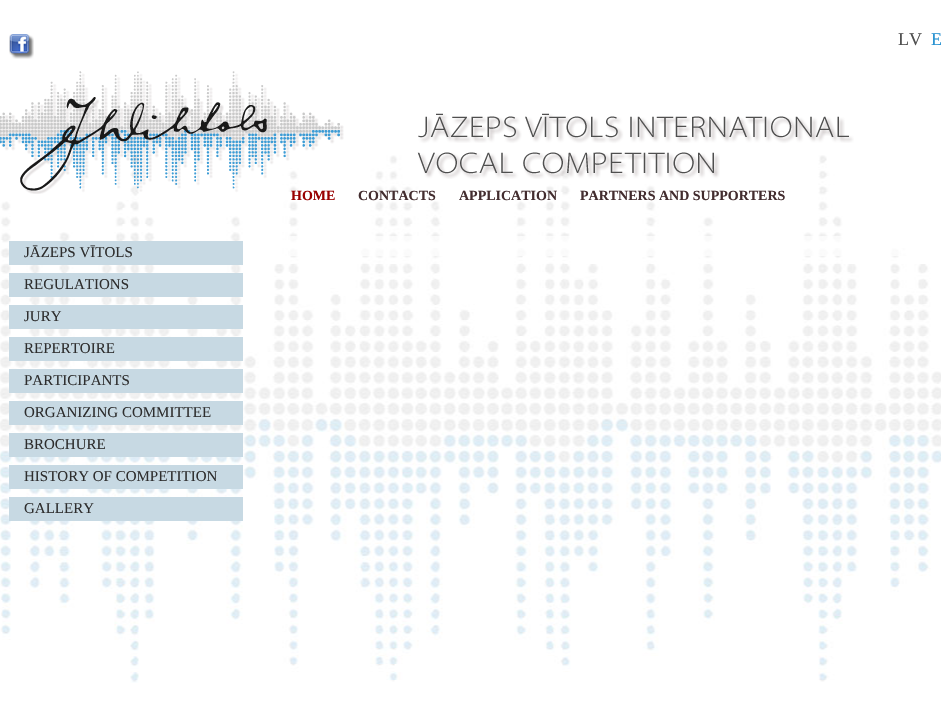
void draw(SkCanvas* canvas) {
	SkPaint fill;
	fill.setAntiAlias(true);
	auto makeFont = [&](const char* family, int weight, float size, bool italic = false) {
		SkFontStyle style(weight, SkFontStyle::kNormal_Width,
			italic ? SkFontStyle::kItalic_Slant : SkFontStyle::kUpright_Slant);
		SkFont result(fontMgr->matchFamilyStyle(family, style), size);
		result.setSubpixel(true);
		return result;
	};
	auto text = [&](const char* s, float x, float y, const SkFont& font) {
		canvas->drawString(s, x, y, font, fill);
	};
	auto box = [&](float l, float t, float r, float b) {
		canvas->drawRect(SkRect::MakeLTRB(l, t, r, b), fill);
	};
	auto picture = [&](const char* path, float l, float t, float r, float b) {
		auto image = SkImages::DeferredFromEncodedData(SkData::MakeFromFileName(path));
		canvas->drawImageRect(image, SkRect::MakeLTRB(l, t, r, b), SkSamplingOptions());
	};
	canvas->clear(0xFFFFFFFF);
	picture("image0.png", 0, 155, 941, 683);
	picture("image1.png", 9, 34, 34, 59);
	picture("image2.png", 0, 71, 344, 194);
	picture("image3.png", 417, 113, 854, 179);
	fill.setColor(0xFFC7D9E3);
	box(9, 241, 243, 265);
	box(9, 273, 243, 297);
	box(9, 305, 243, 329);
	box(9, 337, 243, 361);
	box(9, 369, 243, 393);
	box(9, 401, 243, 425);
	box(9, 433, 243, 457);
	box(9, 465, 243, 489);
	box(9, 497, 243, 521);
	fill.setColor(0xB3FFFFFF);
	box(289, 236, 900, 256);
	auto font1 = makeFont("Liberation Serif", 400, 18);
	fill.setColor(0xFF4F4F4F);
	text("LV", 898, 45, font1);
	fill.setColor(0xFF2892D1);
	text("E", 931, 45, font1);
	auto font2 = makeFont("Liberation Serif", 700, 14);
	fill.setColor(0xFF990000);
	text("HOME", 291, 200, font2);
	fill.setColor(0xFF432D2F);
	text("CONTACTS", 358, 200, font2);
	text("APPLICATION", 459, 200, font2);
	text("PARTNERS AND SUPPORTERS", 580, 200, font2);
	auto font3 = makeFont("Liberation Serif", 400, 15);
	fill.setColor(0xFF2E2E2E);
	text("JĀZEPS VĪTOLS", 24, 257, font3);
	text("REGULATIONS", 24, 289, font3);
	text("JURY", 24, 321, font3);
	text("REPERTOIRE", 24, 353, font3);
	text("PARTICIPANTS", 24, 385, font3);
	text("ORGANIZING COMMITTEE", 24, 417, font3);
	text("BROCHURE", 24, 449, font3);
	text("HISTORY OF COMPETITION", 24, 481, font3);
	text("GALLERY", 24, 513, font3);
}
